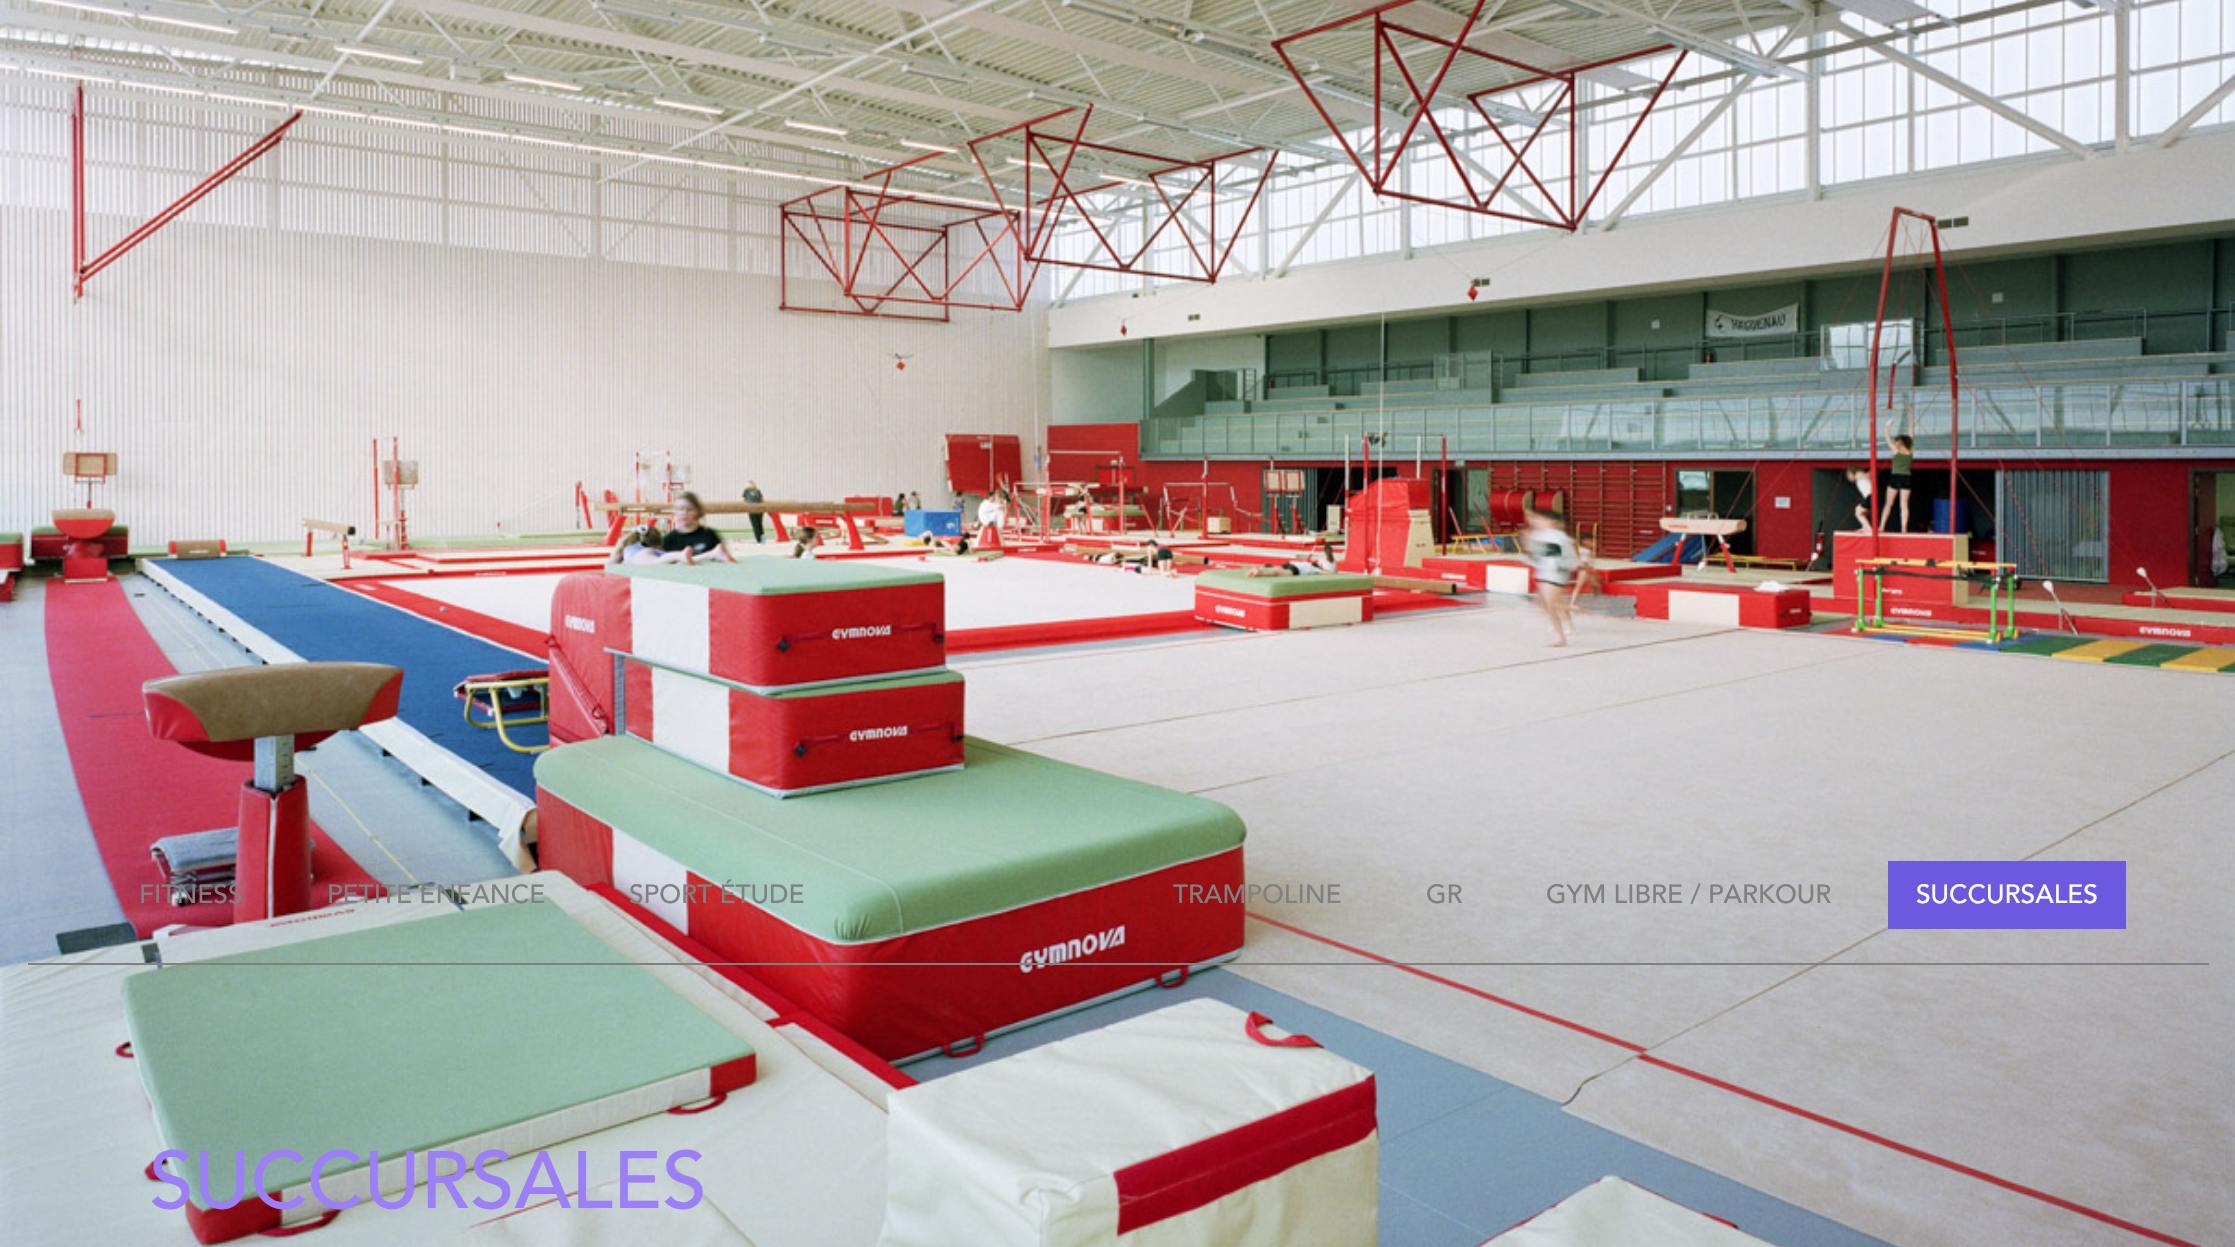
void draw(SkCanvas* canvas) {
	SkPaint fill;
	fill.setAntiAlias(true);
	auto makeFont = [&](const char* family, int weight, float size, bool italic = false) {
		SkFontStyle style(weight, SkFontStyle::kNormal_Width,
			italic ? SkFontStyle::kItalic_Slant : SkFontStyle::kUpright_Slant);
		SkFont result(fontMgr->matchFamilyStyle(family, style), size);
		result.setSubpixel(true);
		return result;
	};
	auto text = [&](const char* s, float x, float y, const SkFont& font) {
		canvas->drawString(s, x, y, font, fill);
	};
	auto box = [&](float l, float t, float r, float b) {
		canvas->drawRect(SkRect::MakeLTRB(l, t, r, b), fill);
	};
	auto picture = [&](const char* path, float l, float t, float r, float b) {
		auto image = SkImages::DeferredFromEncodedData(SkData::MakeFromFileName(path));
		canvas->drawImageRect(image, SkRect::MakeLTRB(l, t, r, b), SkSamplingOptions());
	};
	canvas->clear(0xFFFFFFFF);
	picture("image0.png", 0, 0, 2235, 1247);
	fill.setColor(0xFF808080);
	box(28, 963, 2209, 965);
	fill.setColor(0xFF6D58E0);
	box(1888, 861, 2126, 929);
	auto font1 = makeFont("Avenir", 500, 26.25f);
	fill.setColor(0xFF808080);
	text("FITNESS", 139, 903, font1);
	text("PETITE ENFANCE", 327, 903, font1);
	text("SPORT ÉTUDE", 629, 903, font1);
	text("TRAMPOLINE", 1173, 903, font1);
	text("GR", 1426, 903, font1);
	text("GYM LIBRE / PARKOUR", 1546, 903, font1);
	fill.setColor(0xFFFFFFFF);
	text("SUCCURSALES", 1916, 903, font1);
	auto font2 = makeFont("Avenir", 500, 80.5f);
	fill.setColor(0xFF9C7FF7);
	text("SUCCURSALES", 149, 1208, font2);
}
